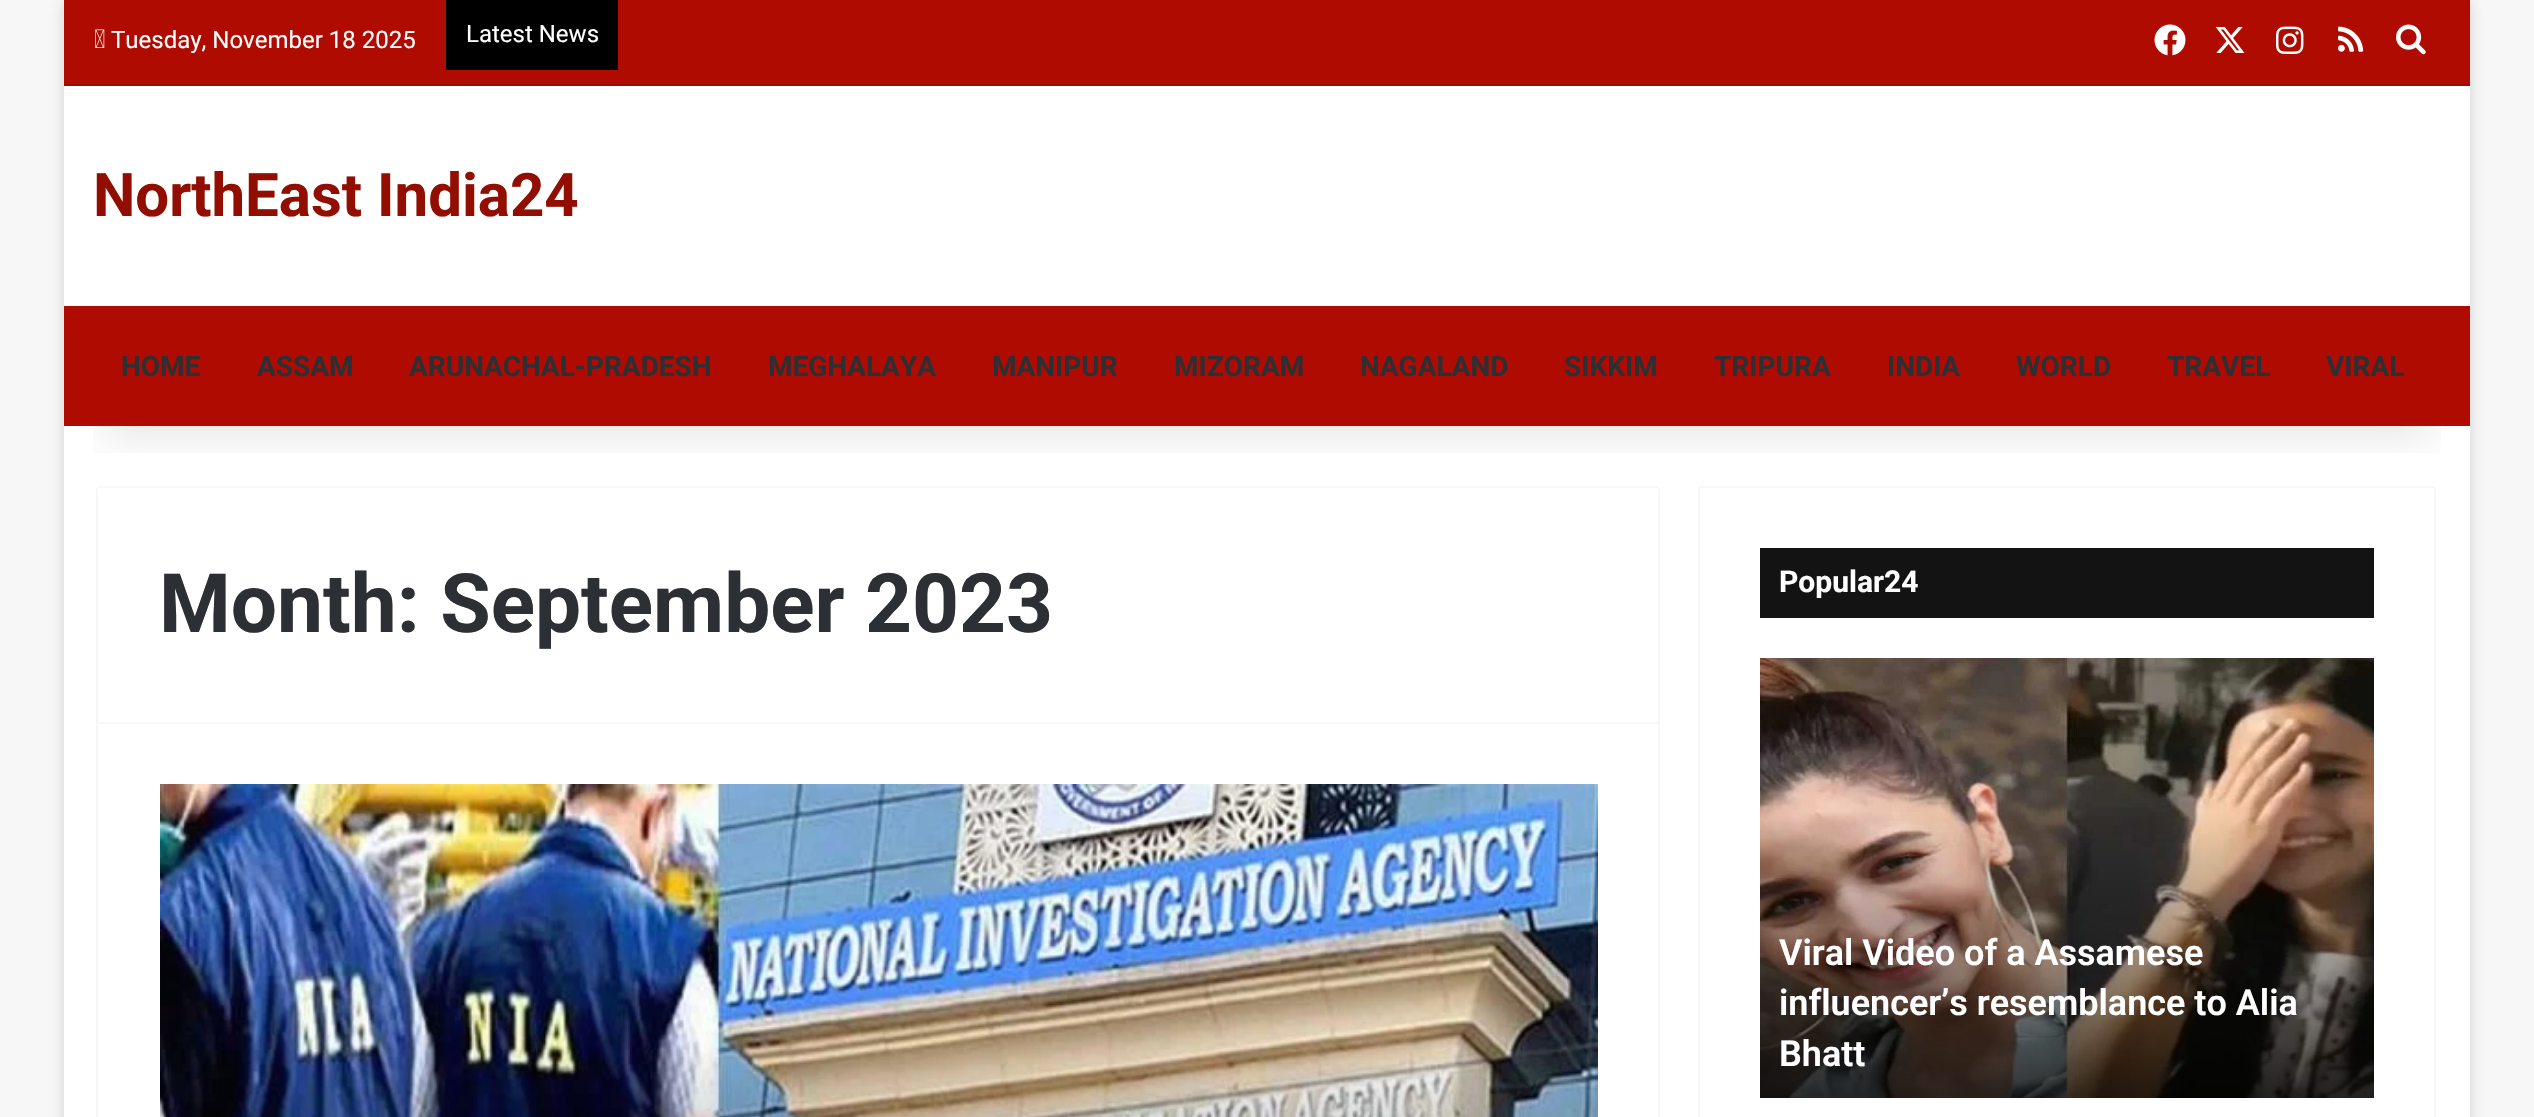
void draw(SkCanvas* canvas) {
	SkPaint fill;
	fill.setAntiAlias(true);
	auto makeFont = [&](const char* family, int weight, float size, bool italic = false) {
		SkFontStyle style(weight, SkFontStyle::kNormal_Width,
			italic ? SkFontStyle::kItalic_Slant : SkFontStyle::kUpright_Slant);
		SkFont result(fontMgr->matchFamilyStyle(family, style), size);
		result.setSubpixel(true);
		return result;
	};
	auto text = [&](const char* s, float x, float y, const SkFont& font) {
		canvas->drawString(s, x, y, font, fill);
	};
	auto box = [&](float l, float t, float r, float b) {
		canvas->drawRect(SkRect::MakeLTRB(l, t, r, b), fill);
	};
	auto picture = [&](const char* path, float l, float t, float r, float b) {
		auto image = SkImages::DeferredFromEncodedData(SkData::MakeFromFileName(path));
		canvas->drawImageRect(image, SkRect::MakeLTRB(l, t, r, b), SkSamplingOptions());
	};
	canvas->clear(0xFFF7F7F7);
	fill.setColor(0x80ABABAB);
	fill.setMaskFilter(SkMaskFilter::MakeBlur(kNormal_SkBlurStyle, 7));
	canvas->drawRect(SkRect::MakeLTRB(64, 2, 2470, 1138), fill);
	fill.setMaskFilter(nullptr);
	fill.setColor(0xFFFFFFFF);
	box(64, 86, 2470, 1117);
	fill.setStyle(SkPaint::kStroke_Style);
	fill.setStrokeWidth(2);
	fill.setColor(0xFFF7F7F7);
	canvas->drawPath(SkPathBuilder().moveTo(100, 487).lineTo(1656, 487).cubicTo(1657.5f, 487, 1659, 488.5f, 1659, 490).lineTo(1659, 723).lineTo(97, 723).lineTo(97, 490).cubicTo(97, 488.5f, 98.5f, 487, 100, 487).close().detach(), fill);
	canvas->drawRoundRect(SkRect::MakeLTRB(1699, 487, 2435, 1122), 3, 3, fill);
	canvas->save();
	canvas->clipRect(SkRect::MakeLTRB(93, 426, 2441, 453));
	fill.setStyle(SkPaint::kFill_Style);
	fill.setColor(0x1A000000);
	fill.setMaskFilter(SkMaskFilter::MakeBlur(kNormal_SkBlurStyle, 20));
	canvas->drawRect(SkRect::MakeLTRB(104, 90, 2430, 436), fill);
	fill.setMaskFilter(nullptr);
	canvas->restore();
	fill.setColor(0xFFAF0B00);
	box(64, 0, 2470, 84);
	fill.setColor(0xFF9E0A00);
	box(64, 84, 2470, 86);
	picture("image0.png", 95, 29, 105, 48);
	fill.setColor(0xFF000000);
	box(446, 0, 618, 70);
	picture("image1.png", 2154, 24, 2186, 56);
	picture("image2.png", 2215, 27, 2245, 53);
	picture("image3.png", 2276, 26, 2304, 54);
	picture("image4.png", 2338, 26, 2364, 52);
	picture("image5.png", 2396, 24, 2426, 55);
	fill.setColor(0xFFAF0B00);
	box(64, 306, 2470, 426);
	fill.setColor(0xFCF7F7F7);
	box(1658, 724, 1660, 1117);
	box(96, 724, 98, 1117);
	picture("image6.png", 160, 784, 1598, 1117);
	fill.setColor(0xFF131313);
	box(1760, 548, 2374, 618);
	picture("image7.png", 1760, 658, 2374, 1098);
	auto font1 = makeFont("Roboto", 400, 24);
	fill.setColor(0xFFFFFFFF);
	text("Tuesday, November 18 2025", 111, 48, font1);
	text("Latest News", 466, 42, font1);
	auto font2 = makeFont("Roboto", 700, 60);
	fill.setColor(0xFF910E00);
	text("NorthEast India24", 93, 216, font2);
	auto font3 = makeFont("Roboto", 700, 28);
	fill.setColor(0xFF2C2F34);
	text("HOME", 121, 376, font3);
	text("ASSAM", 257, 376, font3);
	text("ARUNACHAL-PRADESH", 409, 376, font3);
	text("MEGHALAYA", 768, 376, font3);
	text("MANIPUR", 992, 376, font3);
	text("MIZORAM", 1174, 376, font3);
	text("NAGALAND", 1360, 376, font3);
	text("SIKKIM", 1564, 376, font3);
	text("TRIPURA", 1714, 376, font3);
	text("INDIA", 1887, 376, font3);
	text("WORLD", 2016, 376, font3);
	text("TRAVEL", 2167, 376, font3);
	text("VIRAL", 2326, 376, font3);
	auto font4 = makeFont("Roboto", 700, 82);
	text("Month: September 2023", 159, 632, font4);
	auto font5 = makeFont("Roboto", 700, 30);
	fill.setColor(0xFFFFFFFF);
	text("Popular24", 1779, 592, font5);
	auto font6 = makeFont("Roboto", 600, 36);
	text("Viral Video of a Assamese", 1779, 965, font6);
	text("influencer’s resemblance to Alia", 1779, 1015, font6);
	text("Bhatt", 1779, 1066, font6);
}
